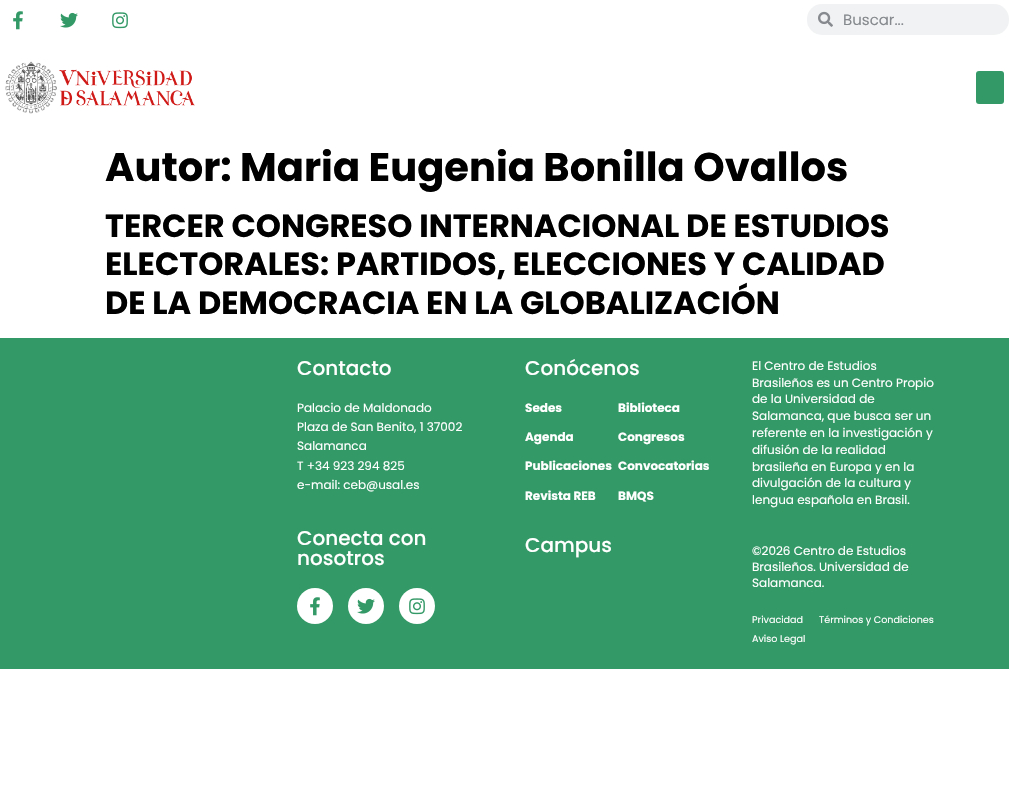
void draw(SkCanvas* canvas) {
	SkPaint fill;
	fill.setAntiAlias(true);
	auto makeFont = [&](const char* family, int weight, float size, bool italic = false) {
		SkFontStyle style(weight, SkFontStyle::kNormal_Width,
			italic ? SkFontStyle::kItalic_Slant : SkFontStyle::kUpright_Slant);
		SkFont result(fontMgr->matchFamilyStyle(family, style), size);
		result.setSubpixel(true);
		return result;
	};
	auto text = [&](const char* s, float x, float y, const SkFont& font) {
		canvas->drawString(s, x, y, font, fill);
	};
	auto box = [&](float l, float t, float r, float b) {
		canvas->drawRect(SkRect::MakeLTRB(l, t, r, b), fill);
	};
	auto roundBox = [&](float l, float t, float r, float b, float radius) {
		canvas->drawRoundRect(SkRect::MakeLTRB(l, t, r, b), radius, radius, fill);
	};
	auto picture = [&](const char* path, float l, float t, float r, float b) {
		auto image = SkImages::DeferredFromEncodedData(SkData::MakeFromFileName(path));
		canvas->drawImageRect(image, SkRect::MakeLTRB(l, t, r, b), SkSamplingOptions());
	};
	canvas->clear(0xFFFFFFFF);
	picture("image0.png", 13, 11, 23, 30);
	picture("image1.png", 60, 12, 78, 28);
	picture("image2.png", 112, 12, 128, 29);
	fill.setColor(0xFFF1F2F3);
	roundBox(807, 4, 1009, 35, 15);
	picture("image3.png", 818, 11, 833, 27);
	picture("image4.png", 5, 61, 195, 114);
	fill.setColor(0xFF339966);
	roundBox(976, 71, 1004, 104, 3);
	box(0, 338, 1009, 669);
	fill.setColor(0xFFFFFFFF);
	canvas->drawCircle(315, 606, 18, fill);
	picture("image0.png", 310, 597, 320, 616);
	canvas->drawCircle(366, 606, 18, fill);
	picture("image1.png", 357, 598, 375, 614);
	canvas->drawCircle(417, 606, 18, fill);
	picture("image2.png", 409, 598, 425, 615);
	auto font1 = makeFont("Poppins", 400, 15);
	fill.setColor(0xFF868A8E);
	text("Buscar...", 843, 25, font1);
	auto font2 = makeFont("Poppins", 700, 40);
	fill.setColor(0xFF000000);
	text("Autor: Maria Eugenia Bonilla Ovallos", 105, 181, font2);
	auto font3 = makeFont("Poppins", 700, 32);
	text("TERCER CONGRESO INTERNACIONAL DE ESTUDIOS", 105, 237, font3);
	text("ELECTORALES: PARTIDOS, ELECCIONES Y CALIDAD", 105, 275, font3);
	text("DE LA DEMOCRACIA EN LA GLOBALIZACIÓN", 105, 314, font3);
	auto font4 = makeFont("Poppins", 500, 20);
	fill.setColor(0xFFFFFFFF);
	text("Contacto", 297, 375, font4);
	auto font5 = makeFont("Poppins", 400, 12);
	text("Palacio de Maldonado", 297, 412, font5);
	text("Plaza de San Benito, 1 37002", 297, 431, font5);
	text("Salamanca", 297, 450, font5);
	text("T +34 923 294 825", 297, 470, font5);
	text("e-mail: ceb@usal.es", 297, 489, font5);
	text("Conecta con", 297, 545, font4);
	text("nosotros", 297, 565, font4);
	text("Conócenos", 525, 375, font4);
	auto font6 = makeFont("Poppins", 700, 12);
	text("Sedes", 525, 412, font6);
	text("Agenda", 525, 441, font6);
	text("Publicaciones", 525, 470, font6);
	text("Revista REB", 525, 500, font6);
	text("Biblioteca", 618, 412, font6);
	text("Congresos", 618, 441, font6);
	text("Convocatorias", 618, 470, font6);
	text("BMQS", 618, 500, font6);
	text("Campus", 525, 552, font4);
	text("El Centro de Estudios", 752, 370, font5);
	text("Brasileños es un Centro Propio", 752, 387, font5);
	text("de la Universidad de", 752, 403, font5);
	text("Salamanca, que busca ser un", 752, 420, font5);
	text("referente en la investigación y", 752, 437, font5);
	text("difusión de la realidad", 752, 454, font5);
	text("brasileña en Europa y en la", 752, 471, font5);
	text("divulgación de la cultura y", 752, 487, font5);
	text("lengua española en Brasil.", 752, 504, font5);
	text("©2026 Centro de Estudios", 752, 555, font5);
	text("Brasileños. Universidad de", 752, 571, font5);
	text("Salamanca.", 752, 587, font5);
	auto font7 = makeFont("Poppins", 400, 9.6f);
	text("Privacidad", 752, 623, font7);
	text("Términos y Condiciones", 819, 623, font7);
	text("Aviso Legal", 752, 642, font7);
}
